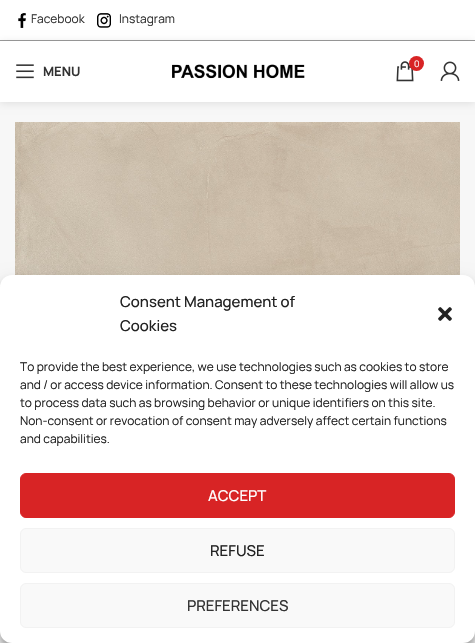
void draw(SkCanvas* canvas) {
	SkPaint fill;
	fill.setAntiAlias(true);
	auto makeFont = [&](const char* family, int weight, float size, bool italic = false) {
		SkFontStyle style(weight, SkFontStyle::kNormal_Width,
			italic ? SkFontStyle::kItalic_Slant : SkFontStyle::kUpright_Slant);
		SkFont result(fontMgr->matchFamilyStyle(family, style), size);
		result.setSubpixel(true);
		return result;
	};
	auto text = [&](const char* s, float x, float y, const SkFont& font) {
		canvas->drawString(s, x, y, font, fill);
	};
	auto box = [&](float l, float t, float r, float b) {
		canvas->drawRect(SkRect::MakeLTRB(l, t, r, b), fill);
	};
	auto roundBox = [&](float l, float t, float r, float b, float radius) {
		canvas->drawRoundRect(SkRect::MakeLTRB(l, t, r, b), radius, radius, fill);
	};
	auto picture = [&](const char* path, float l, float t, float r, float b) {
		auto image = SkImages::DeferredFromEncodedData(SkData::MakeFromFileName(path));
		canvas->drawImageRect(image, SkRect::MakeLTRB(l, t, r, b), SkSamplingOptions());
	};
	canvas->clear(0xFFFFFFFF);
	fill.setColor(0xFF9B9B9B);
	box(0, 40, 475, 41);
	picture("image0.png", 18, 13, 26, 28);
	picture("image1.png", 97, 13, 111, 28);
	fill.setColor(0xFFF7F7F7);
	box(0, 102, 475, 643);
	canvas->save();
	canvas->clipPath(SkPathBuilder(SkPathFillType::kEvenOdd).moveTo(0, 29).lineTo(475, 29).lineTo(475, 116).lineTo(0, 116).close().moveTo(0, 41).lineTo(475, 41).lineTo(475, 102).lineTo(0, 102).close().detach(), true);
	fill.setColor(0x1A000000);
	fill.setMaskFilter(SkMaskFilter::MakeBlur(kNormal_SkBlurStyle, 4));
	canvas->drawRect(SkRect::MakeLTRB(0, 42, 475, 103), fill);
	fill.setMaskFilter(nullptr);
	canvas->restore();
	picture("image2.png", 16, 64, 34, 79);
	picture("image3.png", 172, 64, 305, 79);
	picture("image4.png", 396, 61, 414, 82);
	fill.setColor(0xFFD82425);
	canvas->drawCircle(416.5f, 63.5f, 7.5f, fill);
	picture("image5.png", 440, 61, 460, 81);
	picture("image6.png", 15, 122, 460, 275);
	fill.setColor(0x3B000000);
	fill.setMaskFilter(SkMaskFilter::MakeBlur(kNormal_SkBlurStyle, 3));
	canvas->drawRoundRect(SkRect::MakeLTRB(0, 281, 475, 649), 12, 12, fill);
	fill.setMaskFilter(nullptr);
	fill.setColor(0x30000000);
	fill.setMaskFilter(SkMaskFilter::MakeBlur(kNormal_SkBlurStyle, 10));
	canvas->drawRoundRect(SkRect::MakeLTRB(0, 285, 475, 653), 12, 12, fill);
	fill.setMaskFilter(nullptr);
	fill.setColor(0xFFFFFFFF);
	roundBox(0, 275, 475, 643, 12);
	picture("image7.png", 438, 307, 452, 321);
	fill.setColor(0xFFD82425);
	canvas->drawRoundRect(SkRect::MakeLTRB(20.5f, 473.5f, 454.5f, 517.5f), 5.5f, 5.5f, fill);
	fill.setStyle(SkPaint::kStroke_Style);
	fill.setStrokeWidth(1);
	canvas->drawRoundRect(SkRect::MakeLTRB(20.5f, 473.5f, 454.5f, 517.5f), 5.5f, 5.5f, fill);
	fill.setStyle(SkPaint::kFill_Style);
	fill.setColor(0xFFF9F9F9);
	canvas->drawRoundRect(SkRect::MakeLTRB(20.5f, 528.5f, 454.5f, 572.5f), 5.5f, 5.5f, fill);
	fill.setStyle(SkPaint::kStroke_Style);
	fill.setColor(0xFFF2F2F2);
	canvas->drawRoundRect(SkRect::MakeLTRB(20.5f, 528.5f, 454.5f, 572.5f), 5.5f, 5.5f, fill);
	fill.setStyle(SkPaint::kFill_Style);
	fill.setColor(0xFFF9F9F9);
	canvas->drawRoundRect(SkRect::MakeLTRB(20.5f, 583.5f, 454.5f, 627.5f), 5.5f, 5.5f, fill);
	fill.setStyle(SkPaint::kStroke_Style);
	fill.setColor(0xFFF2F2F2);
	canvas->drawRoundRect(SkRect::MakeLTRB(20.5f, 583.5f, 454.5f, 627.5f), 5.5f, 5.5f, fill);
	auto font1 = makeFont("Manrope", 400, 12);
	fill.setStyle(SkPaint::kFill_Style);
	fill.setColor(0xFF333333);
	text("Facebook", 31, 23, font1);
	text("Instagram", 119, 23, font1);
	auto font2 = makeFont("Manrope", 700, 13);
	text("MENU", 43, 76, font2);
	auto font3 = makeFont("Manrope", 400, 9);
	fill.setColor(0xFFFFFFFF);
	text("0", 414, 67, font3);
	auto font4 = makeFont("Manrope", 500, 15);
	fill.setColor(0xFF222222);
	text("Consent Management of", 120, 307, font4);
	text("Cookies", 120, 331, font4);
	text("To provide the best experience, we use technologies such as cookies to store", 20, 371, font1);
	text("and / or access device information. Consent to these technologies will allow us", 20, 389, font1);
	text("to process data such as browsing behavior or unique identifiers on this site.", 20, 407, font1);
	text("Non-consent or revocation of consent may adversely affect certain functions", 20, 425, font1);
	text("and capabilities.", 20, 443, font1);
	fill.setColor(0xFFFFFFFF);
	text("ACCEPT", 208, 501, font4);
	fill.setColor(0xFF222222);
	text("REFUSE", 210, 556, font4);
	fill.setColor(0xFF333333);
	text("PREFERENCES", 187, 611, font4);
}
